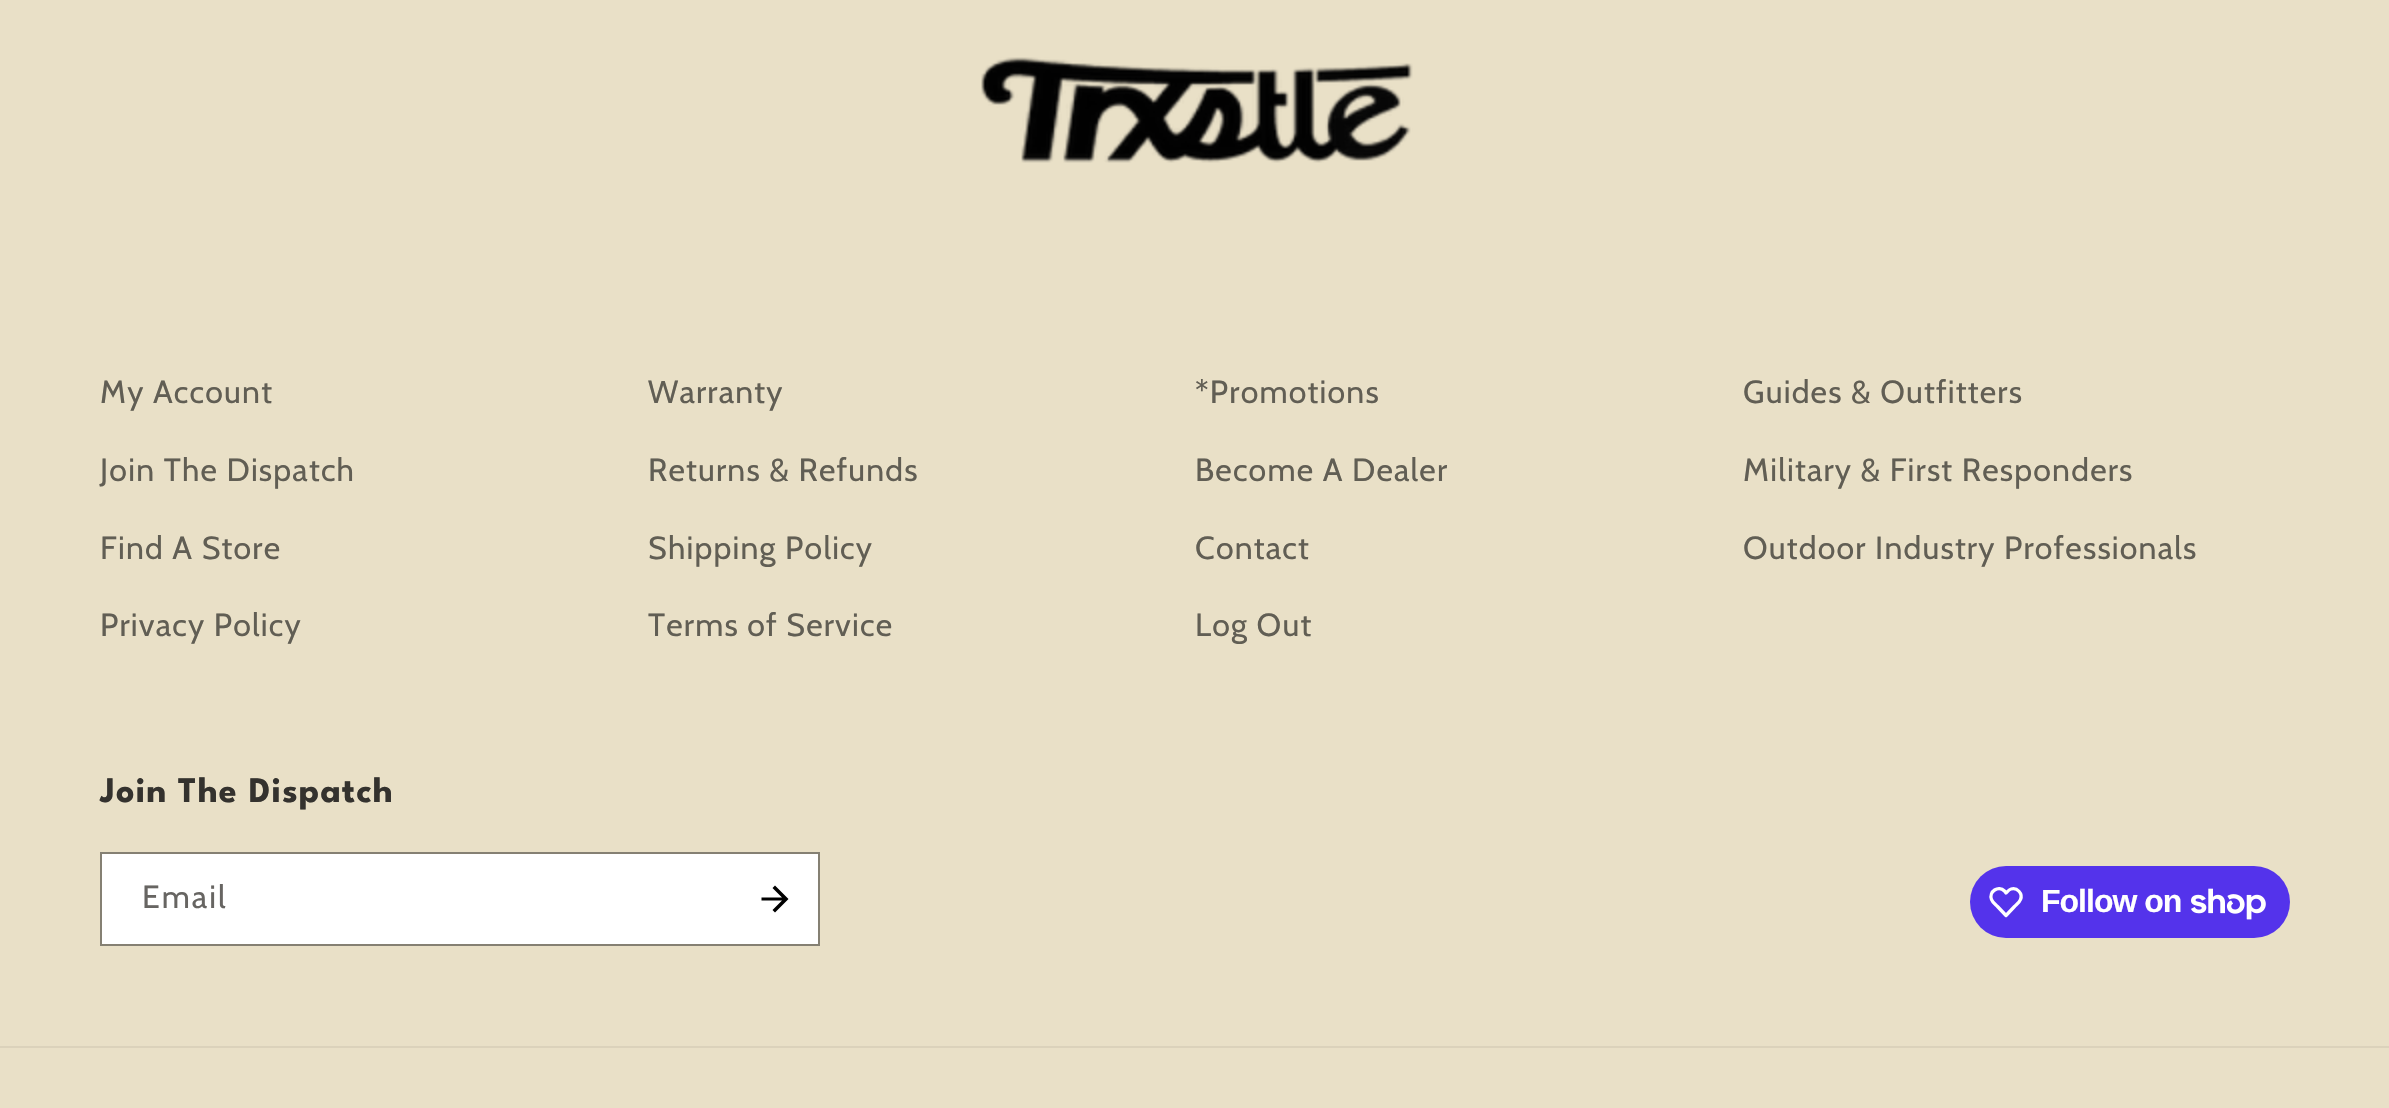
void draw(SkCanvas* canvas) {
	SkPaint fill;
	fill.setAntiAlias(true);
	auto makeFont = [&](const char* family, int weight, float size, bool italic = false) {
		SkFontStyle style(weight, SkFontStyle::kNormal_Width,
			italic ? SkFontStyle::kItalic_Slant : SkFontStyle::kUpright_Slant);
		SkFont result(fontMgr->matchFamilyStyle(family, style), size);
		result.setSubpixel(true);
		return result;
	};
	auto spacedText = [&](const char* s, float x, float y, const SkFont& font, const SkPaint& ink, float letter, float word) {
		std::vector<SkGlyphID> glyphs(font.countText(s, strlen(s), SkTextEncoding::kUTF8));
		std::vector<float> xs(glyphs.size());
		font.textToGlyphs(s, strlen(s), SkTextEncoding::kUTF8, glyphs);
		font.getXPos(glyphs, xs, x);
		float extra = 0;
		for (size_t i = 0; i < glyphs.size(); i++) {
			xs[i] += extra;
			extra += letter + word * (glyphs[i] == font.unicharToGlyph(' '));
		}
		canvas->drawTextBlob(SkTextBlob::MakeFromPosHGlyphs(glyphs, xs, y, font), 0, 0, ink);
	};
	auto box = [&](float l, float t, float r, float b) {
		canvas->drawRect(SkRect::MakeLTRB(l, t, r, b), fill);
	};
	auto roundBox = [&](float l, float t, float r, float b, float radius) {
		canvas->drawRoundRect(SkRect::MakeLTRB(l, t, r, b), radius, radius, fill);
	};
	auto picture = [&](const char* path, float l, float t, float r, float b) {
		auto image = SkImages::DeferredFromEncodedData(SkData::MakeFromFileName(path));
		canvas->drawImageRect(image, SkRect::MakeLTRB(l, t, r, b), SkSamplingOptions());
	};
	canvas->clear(0xFFE9E0C7);
	picture("image0.png", 981, 57, 1413, 163);
	fill.setColor(0xFFFFFFFF);
	box(102, 854, 818, 944);
	fill.setStyle(SkPaint::kStroke_Style);
	fill.setStrokeWidth(2);
	fill.setColor(0xFF858073);
	canvas->drawRect(SkRect::MakeLTRB(101, 853, 819, 945), fill);
	fill.setStyle(SkPaint::kFill_Style);
	fill.setColor(0xFF000000);
	canvas->drawPath(SkPathBuilder().moveTo(775, 885.5f).lineTo(788.5f, 899).lineTo(775, 912.5f).lineTo(772.5f, 910).lineTo(782, 900.5f).lineTo(761.5f, 900.5f).lineTo(761.5f, 897.5f).lineTo(782, 897.5f).lineTo(772.5f, 888).close().detach(), fill);
	fill.setColor(0xFF5433EB);
	roundBox(1970, 866, 2290, 938, 36);
	fill.setStyle(SkPaint::kStroke_Style);
	fill.setStrokeWidth(3.3f);
	fill.setStrokeJoin(SkPaint::kRound_Join);
	fill.setColor(0xFFFFFFFF);
	canvas->drawPath(SkPathBuilder().moveTo(2004.5f, 891).lineTo(2006, 893).cubicTo(2007.5f, 891.5f, 2009, 889.5f, 2011, 889).cubicTo(2017, 887, 2023, 893.5f, 2020.5f, 899.5f).cubicTo(2019.5f, 902.5f, 2016.5f, 904.5f, 2014.5f, 906.5f).lineTo(2006, 915.5f).lineTo(1997.5f, 906.5f).cubicTo(1995.5f, 904.5f, 1992.5f, 902.5f, 1991.5f, 899.5f).cubicTo(1988.5f, 891.5f, 1998.5f, 885, 2004.5f, 891).close().detach(), fill);
	picture("image1.png", 2191, 888, 2266, 920);
	fill.setStyle(SkPaint::kFill_Style);
	fill.setColor(0xFFDBD2BB);
	box(0, 1046, 2389, 1048);
	auto font1 = makeFont("Cabin", 400, 32);
	fill.setColor(0xFF615E54);
	spacedText("My Account", 100, 403, font1, fill, 1.2f, 0);
	spacedText("Warranty", 648, 403, font1, fill, 1.2f, 0);
	spacedText("*Promotions", 1195, 403, font1, fill, 1.2f, 0);
	spacedText("Guides & Outfitters", 1743, 403, font1, fill, 1.2f, 0);
	spacedText("Join The Dispatch", 100, 481, font1, fill, 1.2f, 0);
	spacedText("Returns & Refunds", 648, 481, font1, fill, 1.2f, 0);
	spacedText("Become A Dealer", 1195, 481, font1, fill, 1.2f, 0);
	spacedText("Military & First Responders", 1743, 481, font1, fill, 1.2f, 0);
	spacedText("Find A Store", 100, 559, font1, fill, 1.2f, 0);
	spacedText("Shipping Policy", 648, 559, font1, fill, 1.2f, 0);
	spacedText("Contact", 1195, 559, font1, fill, 1.2f, 0);
	spacedText("Outdoor Industry Professionals", 1743, 559, font1, fill, 1.2f, 0);
	spacedText("Privacy Policy", 100, 636, font1, fill, 1.2f, 0);
	spacedText("Terms of Service", 648, 636, font1, fill, 1.2f, 0);
	spacedText("Log Out", 1195, 636, font1, fill, 1.2f, 0);
	auto font2 = makeFont("League Spartan", 700, 36);
	fill.setColor(0xFF34322E);
	spacedText("Join The Dispatch", 100, 802, font2, fill, 1.2f, 0);
	fill.setColor(0xFF676562);
	spacedText("Email", 142, 908, font1, fill, 2, 0);
	auto font3 = makeFont("Liberation Sans", 700, 32);
	fill.setColor(0xFFFFFFFF);
	spacedText("Follow on", 2041, 912, font3, fill, -1, 0);
}
